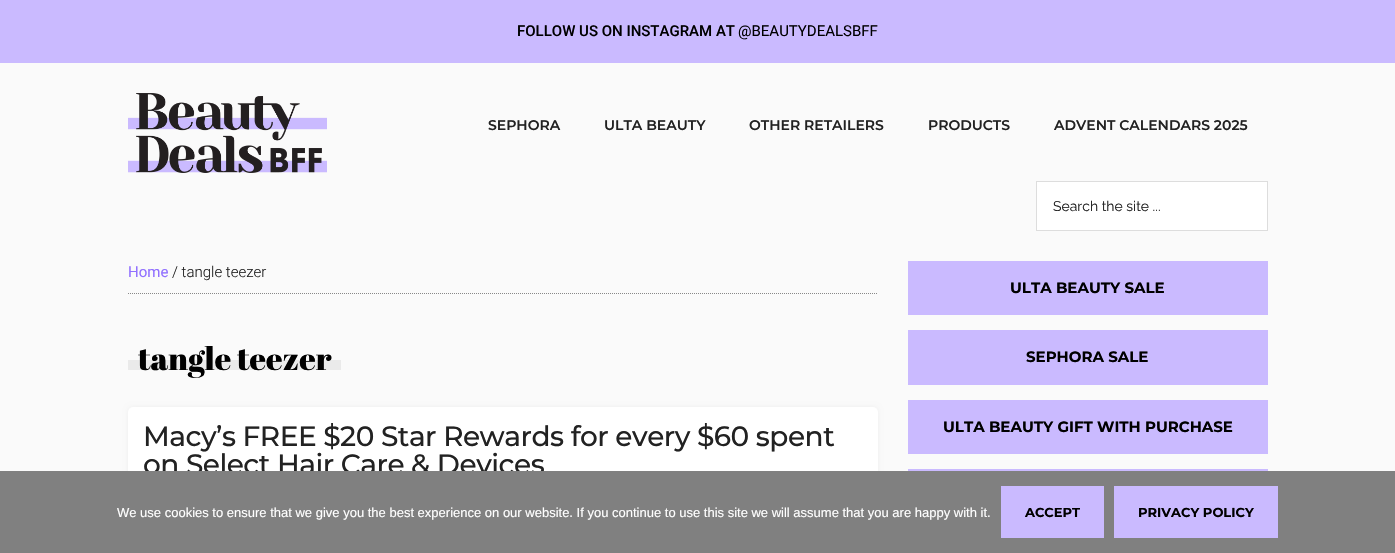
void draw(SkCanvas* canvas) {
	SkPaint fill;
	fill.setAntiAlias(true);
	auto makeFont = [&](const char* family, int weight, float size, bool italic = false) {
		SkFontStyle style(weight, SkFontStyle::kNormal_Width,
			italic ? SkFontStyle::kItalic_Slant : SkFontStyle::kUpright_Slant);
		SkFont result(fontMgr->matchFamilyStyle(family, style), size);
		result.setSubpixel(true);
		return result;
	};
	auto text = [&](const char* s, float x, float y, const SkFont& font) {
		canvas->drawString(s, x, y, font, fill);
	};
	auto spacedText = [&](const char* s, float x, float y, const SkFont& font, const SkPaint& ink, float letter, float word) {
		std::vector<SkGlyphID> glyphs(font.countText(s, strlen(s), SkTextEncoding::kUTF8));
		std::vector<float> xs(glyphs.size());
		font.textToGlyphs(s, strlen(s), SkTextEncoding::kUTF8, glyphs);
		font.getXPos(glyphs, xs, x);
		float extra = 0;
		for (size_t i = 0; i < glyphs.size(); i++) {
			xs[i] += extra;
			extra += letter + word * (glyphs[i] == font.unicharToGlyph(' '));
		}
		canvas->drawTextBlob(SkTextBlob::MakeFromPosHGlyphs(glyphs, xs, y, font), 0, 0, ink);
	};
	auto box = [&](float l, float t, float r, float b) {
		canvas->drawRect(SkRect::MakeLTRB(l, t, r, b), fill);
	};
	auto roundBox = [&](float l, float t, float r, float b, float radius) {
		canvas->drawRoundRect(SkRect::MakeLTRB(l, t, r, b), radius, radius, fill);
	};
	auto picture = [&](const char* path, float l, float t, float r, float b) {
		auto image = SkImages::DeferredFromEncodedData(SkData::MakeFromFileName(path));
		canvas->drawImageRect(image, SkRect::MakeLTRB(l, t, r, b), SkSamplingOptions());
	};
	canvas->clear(0xFFFAFAFA);
	fill.setColor(0xFFCABAFF);
	box(0, 0, 1395, 63);
	picture("image0.png", 128, 93, 327, 173);
	fill.setColor(0xFFFFFFFF);
	canvas->drawRect(SkRect::MakeLTRB(1036.5f, 181.5f, 1267.5f, 230.5f), fill);
	fill.setStyle(SkPaint::kStroke_Style);
	fill.setStrokeWidth(1);
	fill.setColor(0xFFDDDDDD);
	canvas->drawRect(SkRect::MakeLTRB(1036.5f, 181.5f, 1267.5f, 230.5f), fill);
	fill.setColor(0xFF888888);
	fill.setPathEffect(SkDashPathEffect::Make({{1, 1}}, 0));
	canvas->drawPath(SkPathBuilder().moveTo(128, 293.5f).lineTo(878, 293.5f).detach(), fill);
	fill.setPathEffect(nullptr);
	fill.setStyle(SkPaint::kFill_Style);
	fill.setColor(0xFFEAEAEA);
	box(128, 360, 341, 370);
	fill.setColor(0xFFEEEEEE);
	fill.setMaskFilter(SkMaskFilter::MakeBlur(kNormal_SkBlurStyle, 2.5f));
	canvas->drawRoundRect(SkRect::MakeLTRB(128, 407, 878, 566), 5, 5, fill);
	fill.setMaskFilter(nullptr);
	fill.setColor(0xFFFFFFFF);
	roundBox(128, 407, 878, 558, 5);
	fill.setColor(0xFFCABAFF);
	box(908, 261, 1268, 315);
	box(908, 330, 1268, 385);
	box(908, 400, 1268, 454);
	box(908, 469, 1268, 471);
	auto font1 = makeFont("Roboto", 500, 15);
	fill.setColor(0xFF000000);
	text("FOLLOW US ON INSTAGRAM AT", 517, 36, font1);
	auto font2 = makeFont("Roboto", 400, 15);
	text("@BEAUTYDEALSBFF", 738, 36, font2);
	auto font3 = makeFont("Montserrat", 600, 14);
	fill.setColor(0xFF222222);
	text("SEPHORA", 488, 130, font3);
	text("ULTA BEAUTY", 604, 130, font3);
	text("OTHER RETAILERS", 749, 130, font3);
	text("PRODUCTS", 928, 130, font3);
	text("ADVENT CALENDARS 2025", 1054, 130, font3);
	auto font4 = makeFont("Raleway", 400, 14);
	text("Search the site ...", 1053, 211, font4);
	fill.setColor(0xFF9170FF);
	text("Home", 128, 277, font2);
	auto font5 = makeFont("Roboto", 300, 15);
	fill.setColor(0xFF222222);
	text("/ tangle teezer", 172, 277, font5);
	auto font6 = makeFont("Abril Fatface", 400, 32);
	fill.setColor(0xFF000000);
	text("tangle teezer", 138, 370, font6);
	auto font7 = makeFont("Montserrat", 500, 28);
	fill.setColor(0xFF222222);
	spacedText("Macy’s FREE $20 Star Rewards for every $60 spent", 143, 446, font7, fill, -0.5f, 0);
	spacedText("on Select Hair Care & Devices", 143, 474, font7, fill, -0.5f, 0);
	auto font8 = makeFont("Montserrat", 700, 15);
	fill.setColor(0xFF000000);
	text("ULTA BEAUTY SALE", 1010, 293, font8);
	text("SEPHORA SALE", 1026, 362, font8);
	text("ULTA BEAUTY GIFT WITH PURCHASE", 943, 432, font8);
	fill.setColor(0xFF808080);
	box(0, 471, 1395, 553);
	auto font9 = makeFont("Liberation Sans", 400, 13);
	fill.setColor(0xFFFFFFFF);
	text("We use cookies to ensure that we give you the best experience on our website. If you continue to use this site we will assume that you are happy with it.", 117, 517, font9);
	fill.setColor(0xFFCABAFF);
	box(1001, 486, 1104, 538);
	auto font10 = makeFont("Montserrat", 700, 13);
	fill.setColor(0xFF000000);
	text("ACCEPT", 1025, 517, font10);
	fill.setColor(0xFFCABAFF);
	box(1114, 486, 1278, 538);
	fill.setColor(0xFF000000);
	text("PRIVACY POLICY", 1138, 517, font10);
}
